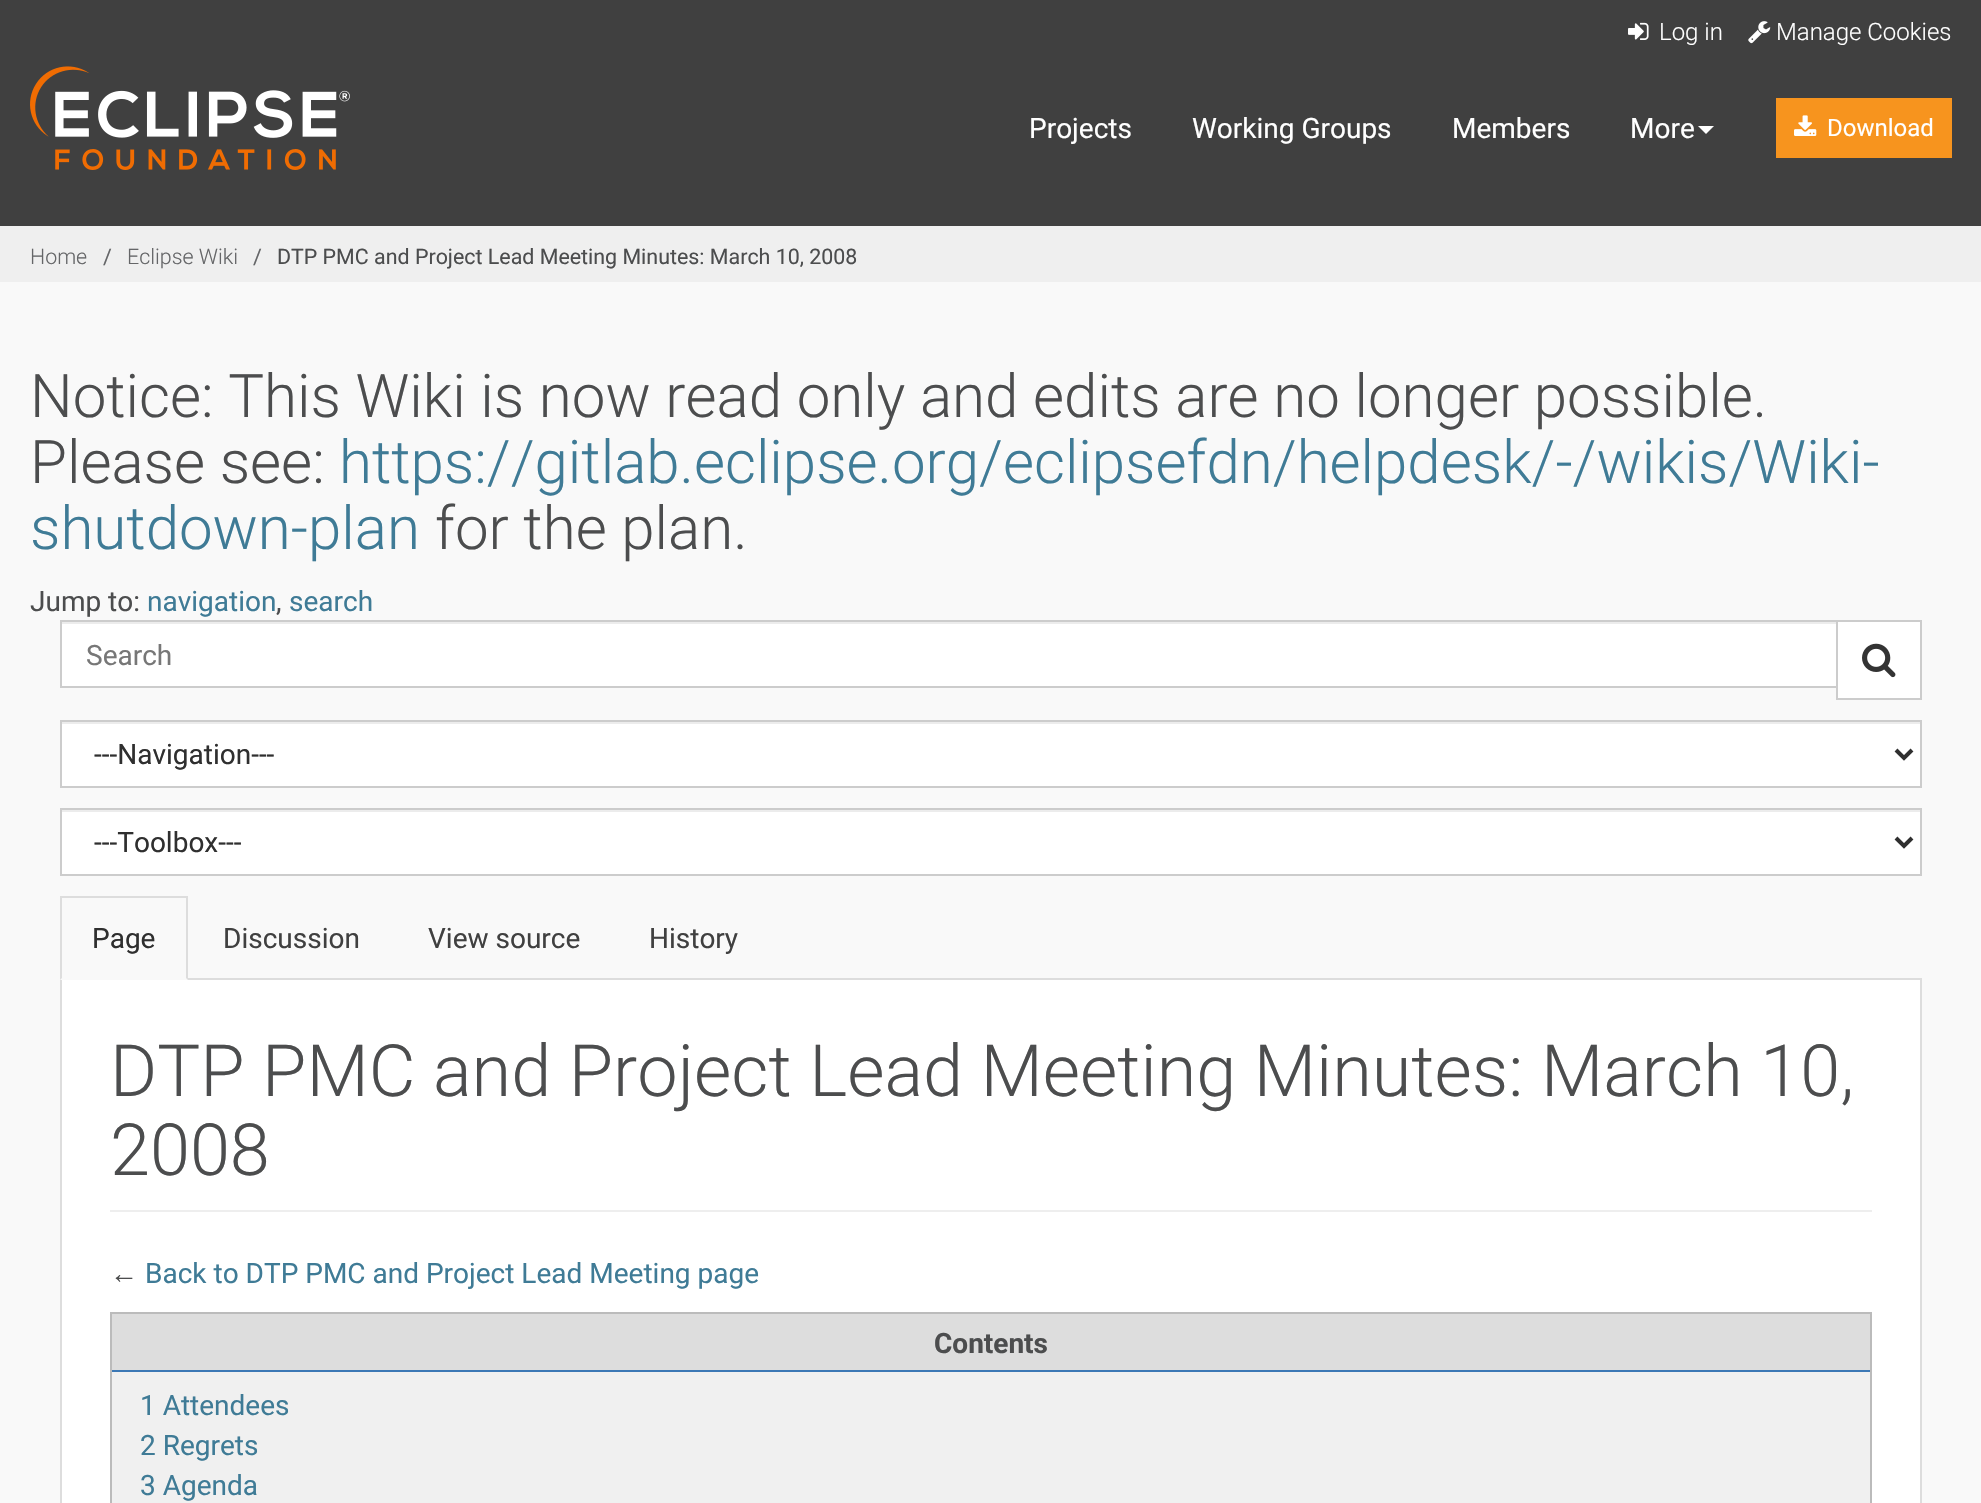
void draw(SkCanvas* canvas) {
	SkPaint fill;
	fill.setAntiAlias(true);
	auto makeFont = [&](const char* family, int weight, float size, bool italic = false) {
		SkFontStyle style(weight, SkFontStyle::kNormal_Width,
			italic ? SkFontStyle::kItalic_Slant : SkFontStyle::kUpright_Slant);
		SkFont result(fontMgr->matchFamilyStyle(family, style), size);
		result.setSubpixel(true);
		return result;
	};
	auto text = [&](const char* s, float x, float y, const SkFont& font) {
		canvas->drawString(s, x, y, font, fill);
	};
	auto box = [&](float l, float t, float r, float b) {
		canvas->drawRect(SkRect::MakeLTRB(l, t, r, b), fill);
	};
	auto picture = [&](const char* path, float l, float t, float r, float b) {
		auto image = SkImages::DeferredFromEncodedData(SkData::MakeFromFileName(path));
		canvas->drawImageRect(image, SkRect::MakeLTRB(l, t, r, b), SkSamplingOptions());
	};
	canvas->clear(0xFFF9F9F9);
	fill.setColor(0xFF404040);
	box(0, 0, 1981, 226);
	picture("image0.png", 1628, 22, 1649, 40);
	picture("image1.png", 1748, 21, 1771, 44);
	picture("image2.png", 30, 66, 350, 170);
	fill.setColor(0xFFFFFFFF);
	canvas->drawPath(SkPathBuilder().moveTo(1698, 126).lineTo(1714, 126).lineTo(1706, 134).close().detach(), fill);
	fill.setColor(0xFFF7941E);
	box(1776, 98, 1952, 158);
	picture("image3.png", 1794, 115, 1817, 136);
	fill.setColor(0xFFEFEFEF);
	box(0, 226, 1981, 282);
	fill.setColor(0xFFFFFFFF);
	box(62, 624, 1836, 686);
	fill.setColor(0xFFECECEC);
	box(62, 622, 1836, 624);
	fill.setStyle(SkPaint::kStroke_Style);
	fill.setStrokeWidth(2);
	fill.setColor(0xFFCCCCCC);
	canvas->drawRect(SkRect::MakeLTRB(61, 621, 1837, 687), fill);
	fill.setStyle(SkPaint::kFill_Style);
	fill.setColor(0xFFFFFFFF);
	canvas->drawRect(SkRect::MakeLTRB(1837, 621, 1921, 699), fill);
	fill.setStyle(SkPaint::kStroke_Style);
	fill.setColor(0xFFCCCCCC);
	canvas->drawRect(SkRect::MakeLTRB(1837, 621, 1921, 699), fill);
	picture("image4.png", 1862, 643, 1896, 678);
	fill.setStyle(SkPaint::kFill_Style);
	fill.setColor(0xFFFFFFFF);
	box(62, 724, 1920, 786);
	fill.setColor(0xFFECECEC);
	box(62, 722, 1920, 724);
	fill.setStyle(SkPaint::kStroke_Style);
	fill.setColor(0xFFCCCCCC);
	canvas->drawRect(SkRect::MakeLTRB(61, 721, 1921, 787), fill);
	fill.setStrokeWidth(4);
	fill.setColor(0xFF2F2F2F);
	canvas->drawPath(SkPathBuilder().moveTo(1896, 750).lineTo(1904, 758).lineTo(1912, 750).detach(), fill);
	fill.setStyle(SkPaint::kFill_Style);
	fill.setColor(0xFFFFFFFF);
	box(62, 812, 1920, 874);
	fill.setColor(0xFFECECEC);
	box(62, 810, 1920, 812);
	fill.setStyle(SkPaint::kStroke_Style);
	fill.setStrokeWidth(2);
	fill.setColor(0xFFCCCCCC);
	canvas->drawRect(SkRect::MakeLTRB(61, 809, 1921, 875), fill);
	fill.setStrokeWidth(4);
	fill.setColor(0xFF2F2F2F);
	canvas->drawPath(SkPathBuilder().moveTo(1896, 838).lineTo(1904, 846).lineTo(1912, 838).detach(), fill);
	fill.setStyle(SkPaint::kFill_Style);
	fill.setColor(0xFFDDDDDD);
	box(188, 978, 1922, 980);
	box(60, 896, 188, 898);
	canvas->drawPath(SkPathBuilder().moveTo(188, 896).lineTo(188, 980).lineTo(186, 978).lineTo(186, 898).close().detach(), fill);
	canvas->drawPath(SkPathBuilder().moveTo(60, 980).lineTo(60, 896).lineTo(62, 898).lineTo(62, 978).close().detach(), fill);
	fill.setColor(0xFFFFFFFF);
	box(62, 980, 1920, 1503);
	fill.setColor(0xFFDDDDDD);
	box(1920, 980, 1922, 1503);
	box(60, 980, 62, 1503);
	fill.setColor(0xFFEEEEEE);
	box(110, 1210, 1872, 1212);
	fill.setColor(0xFFF0F0F0);
	box(112, 1372, 1870, 1503);
	fill.setStyle(SkPaint::kStroke_Style);
	fill.setStrokeWidth(2);
	fill.setColor(0xFFBBBBBB);
	canvas->drawRect(SkRect::MakeLTRB(111, 1313, 1871, 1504), fill);
	fill.setStyle(SkPaint::kFill_Style);
	fill.setColor(0xFFDDDDDD);
	box(112, 1314, 1870, 1370);
	fill.setColor(0xFF3C78B5);
	box(112, 1370, 1870, 1372);
	auto font1 = makeFont("Roboto", 300, 24);
	fill.setColor(0xFFFFFFFF);
	text("Log in", 1659, 40, font1);
	text("Manage Cookies", 1776, 40, font1);
	auto font2 = makeFont("Roboto", 400, 28);
	text("Projects", 1029, 138, font2);
	text("Working Groups", 1192, 138, font2);
	text("Members", 1452, 138, font2);
	text("More", 1630, 138, font2);
	auto font3 = makeFont("Roboto", 400, 24);
	text("Download", 1827, 136, font3);
	auto font4 = makeFont("Roboto", 300, 21.4f);
	fill.setColor(0xFF656668);
	text("Home", 30, 264, font4);
	auto font5 = makeFont("Roboto", 400, 21.4f);
	text("/", 103, 264, font5);
	text("Eclipse Wiki", 127, 264, font4);
	text("/", 253, 264, font5);
	fill.setColor(0xFF4C4D4E);
	text("DTP PMC and Project Lead Meeting Minutes: March 10, 2008", 277, 264, font5);
	auto font6 = makeFont("Roboto", 300, 60);
	text("Notice: This Wiki is now read only and edits are no longer possible.", 30, 417, font6);
	text("Please see:", 30, 483, font6);
	fill.setColor(0xFF3F7B96);
	text("https://gitlab.eclipse.org/eclipsefdn/helpdesk/-/wikis/Wiki-", 339, 483, font6);
	text("shutdown-plan", 30, 549, font6);
	fill.setColor(0xFF4C4D4E);
	text("for the plan.", 435, 549, font6);
	text("Jump to:", 30, 611, font2);
	fill.setColor(0xFF3F7B96);
	text("navigation", 147, 611, font2);
	fill.setColor(0xFF4C4D4E);
	text(",", 276, 611, font2);
	fill.setColor(0xFF3F7B96);
	text("search", 289, 611, font2);
	fill.setColor(0xFF777777);
	text("Search", 86, 665, font2);
	fill.setColor(0xFF2F2F2F);
	text("---Navigation---", 94, 764, font2);
	text("---Toolbox---", 94, 852, font2);
	text("Page", 92, 948, font2);
	fill.setColor(0xFF404040);
	text("Discussion", 223, 948, font2);
	text("View source", 428, 948, font2);
	text("History", 649, 948, font2);
	auto font7 = makeFont("Roboto", 300, 72);
	fill.setColor(0xFF4C4D4E);
	text("DTP PMC and Project Lead Meeting Minutes: March 10,", 110, 1096, font7);
	text("2008", 110, 1175, font7);
	auto font8 = makeFont("Liberation Sans", 400, 28);
	text("←", 110, 1283, font8);
	fill.setColor(0xFF3F7B96);
	text("Back to DTP PMC and Project Lead Meeting page", 145, 1283, font2);
	auto font9 = makeFont("Roboto", 700, 28);
	fill.setColor(0xFF4C4D4E);
	text("Contents", 934, 1353, font9);
	fill.setColor(0xFF3F7B96);
	text("1 Attendees", 140, 1415, font2);
	text("2 Regrets", 140, 1455, font2);
	text("3 Agenda", 140, 1495, font2);
}
